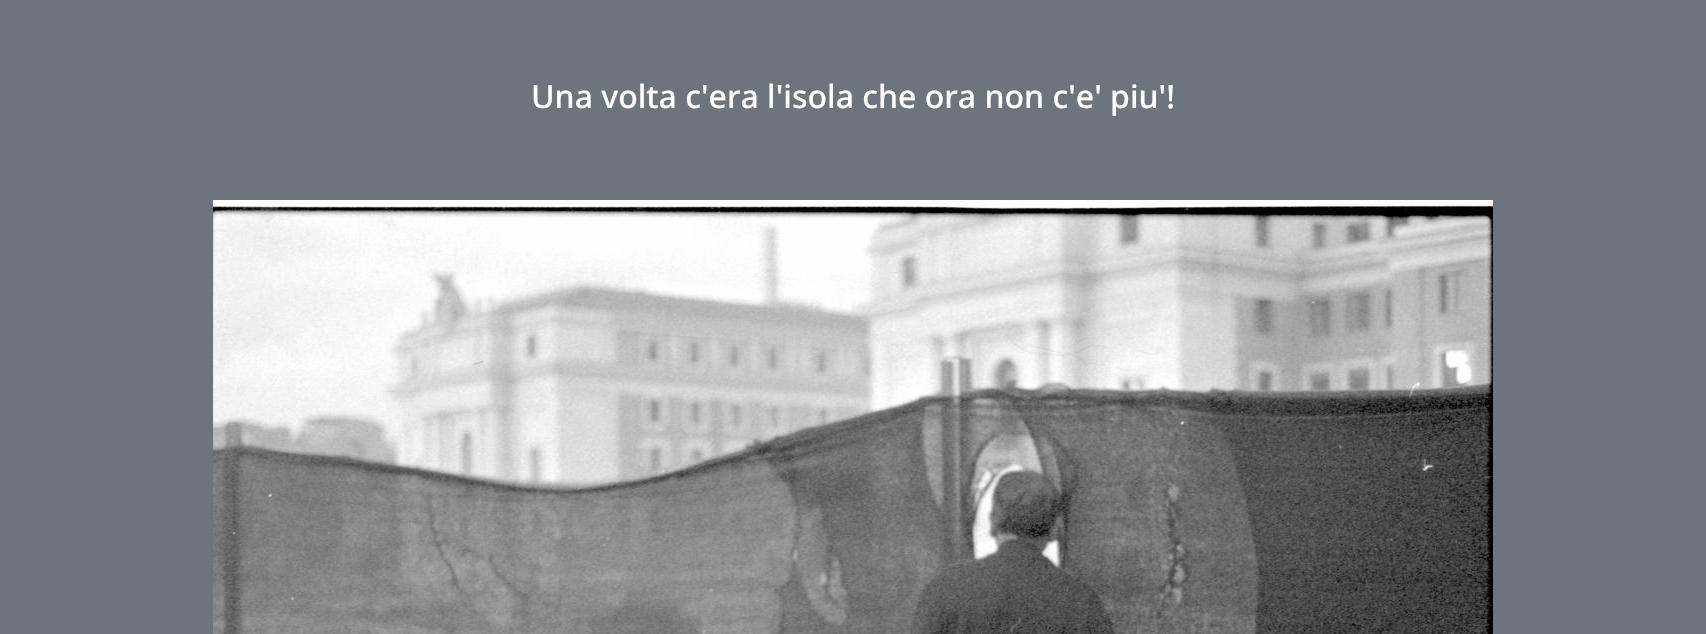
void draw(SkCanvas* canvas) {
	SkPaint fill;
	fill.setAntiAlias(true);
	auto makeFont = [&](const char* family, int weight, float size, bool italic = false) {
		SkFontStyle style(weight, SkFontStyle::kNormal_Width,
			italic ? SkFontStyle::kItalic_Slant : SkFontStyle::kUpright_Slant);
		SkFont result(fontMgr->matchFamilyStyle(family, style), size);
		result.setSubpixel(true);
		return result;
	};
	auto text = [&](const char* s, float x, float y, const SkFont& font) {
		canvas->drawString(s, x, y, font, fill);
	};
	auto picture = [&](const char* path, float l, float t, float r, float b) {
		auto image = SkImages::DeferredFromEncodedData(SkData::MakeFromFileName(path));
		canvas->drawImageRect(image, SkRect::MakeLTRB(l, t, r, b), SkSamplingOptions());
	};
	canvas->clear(0xFF6C757D);
	picture("image0.png", 213, 200, 1493, 634);
	auto font1 = makeFont("Noto Sans", 500, 32);
	fill.setColor(0xFFFFFFFF);
	text("Una volta c'era l'isola che ora non c'e' piu'!", 531, 108, font1);
}
